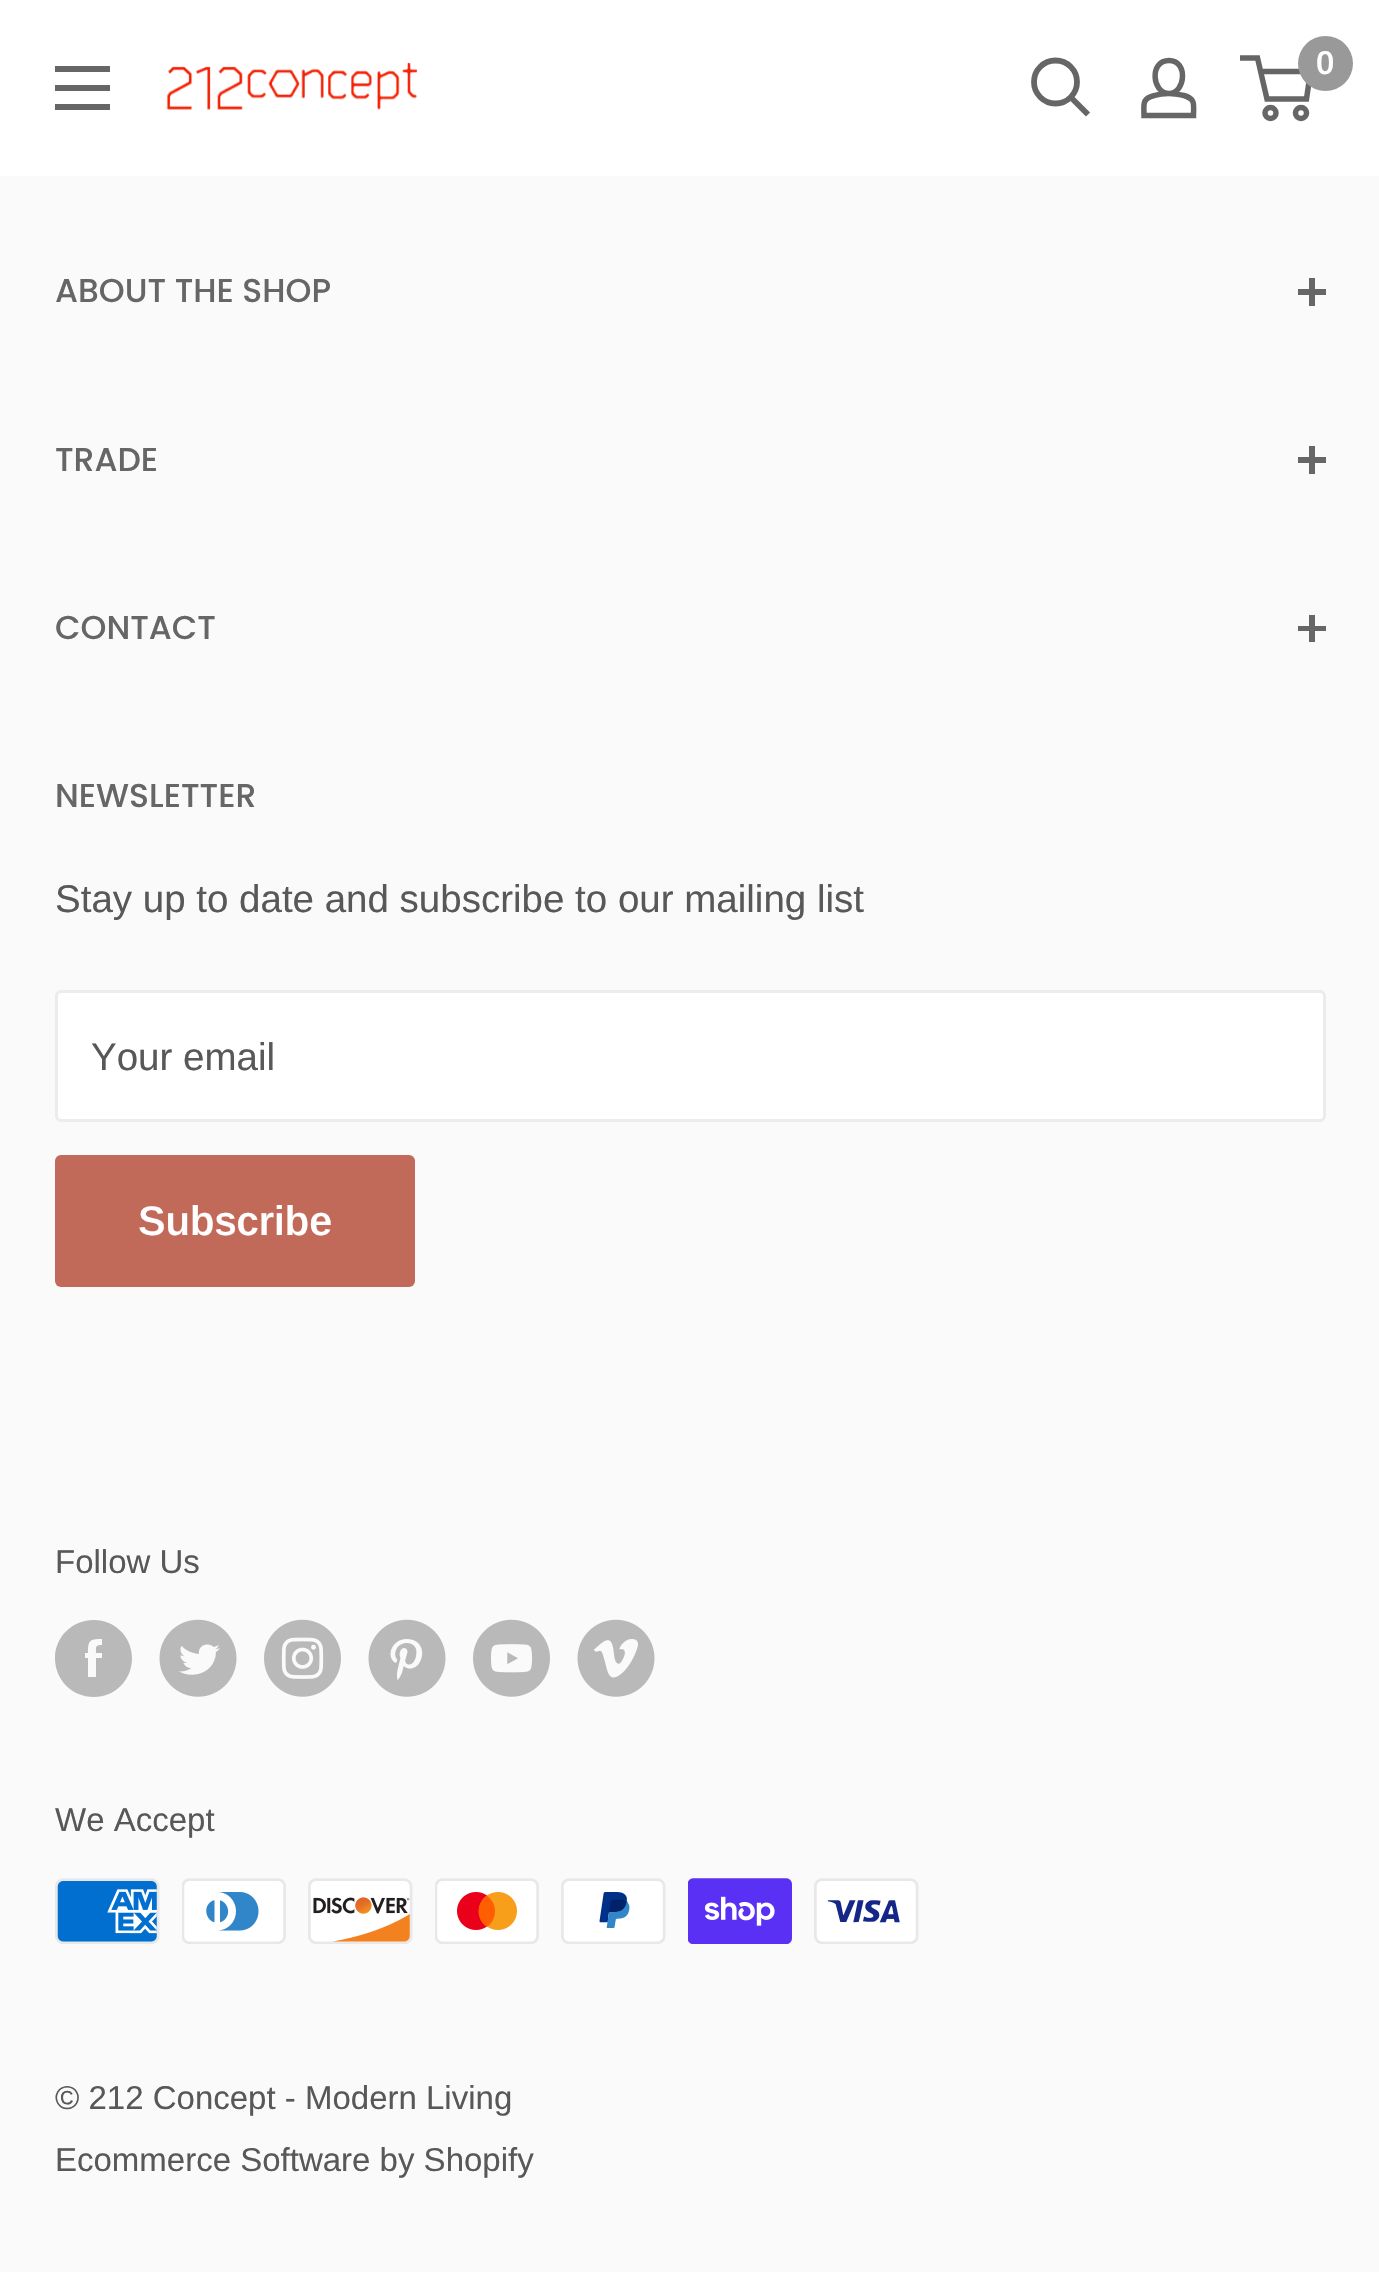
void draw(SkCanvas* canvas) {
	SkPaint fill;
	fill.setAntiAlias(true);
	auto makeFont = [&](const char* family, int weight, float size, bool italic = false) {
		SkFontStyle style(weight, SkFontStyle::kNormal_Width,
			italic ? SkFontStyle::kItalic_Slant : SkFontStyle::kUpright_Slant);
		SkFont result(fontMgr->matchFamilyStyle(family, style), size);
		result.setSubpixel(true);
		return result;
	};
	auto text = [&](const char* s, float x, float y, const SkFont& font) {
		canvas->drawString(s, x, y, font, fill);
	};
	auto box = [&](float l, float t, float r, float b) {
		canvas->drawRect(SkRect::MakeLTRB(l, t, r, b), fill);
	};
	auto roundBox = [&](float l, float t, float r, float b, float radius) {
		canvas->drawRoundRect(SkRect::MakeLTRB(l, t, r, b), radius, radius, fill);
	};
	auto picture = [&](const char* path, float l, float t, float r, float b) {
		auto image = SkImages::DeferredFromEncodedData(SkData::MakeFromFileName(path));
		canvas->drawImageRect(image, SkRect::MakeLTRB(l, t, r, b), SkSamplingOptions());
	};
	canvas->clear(0xFFFAFAFA);
	fill.setColor(0xFFFFFFFF);
	box(0, 0, 1379, 176);
	fill.setColor(0xFF666666);
	canvas->drawPath(SkPathBuilder(SkPathFillType::kEvenOdd).moveTo(55, 104).lineTo(110, 104).lineTo(110, 110).lineTo(55, 110).close().moveTo(55, 66).lineTo(110, 66).lineTo(110, 72).lineTo(55, 72).close().moveTo(55, 85).lineTo(110, 85).lineTo(110, 91).lineTo(55, 91).close().detach(), fill);
	picture("image0.png", 166, 62, 418, 110);
	fill.setStyle(SkPaint::kStroke_Style);
	fill.setStrokeWidth(5.8f);
	fill.setStrokeCap(SkPaint::kSquare_Cap);
	canvas->drawPath(SkPathBuilder().moveTo(1086, 112.5f).lineTo(1071.5f, 98).detach(), fill);
	fill.setStrokeCap(SkPaint::kButt_Cap);
	canvas->drawCircle(1055.5f, 82, 21.5f, fill);
	fill.setStrokeWidth(5.5f);
	canvas->drawPath(SkPathBuilder().moveTo(1169, 93.5f).cubicTo(1174, 93.5f, 1179, 94.5f, 1184, 95.5f).cubicTo(1196, 99, 1193.5f, 105, 1193.5f, 115.5f).lineTo(1144, 115.5f).cubicTo(1144, 104.5f, 1141.5f, 98.5f, 1154.5f, 95.5f).cubicTo(1159, 94, 1164, 93.5f, 1169, 93.5f).close().moveTo(1169, 93.5f).cubicTo(1152, 93.5f, 1149, 60.5f, 1169, 60.5f).cubicTo(1188.5f, 60.5f, 1185.5f, 93.5f, 1169, 93.5f).close().detach(), fill);
	canvas->drawCircle(1270.5f, 113, 5.5f, fill);
	canvas->drawCircle(1301, 113, 5.5f, fill);
	canvas->drawPath(SkPathBuilder().moveTo(1260.5f, 71.5f).lineTo(1310.5f, 71.5f).lineTo(1306.5f, 99).lineTo(1267, 99).lineTo(1257.5f, 58).lineTo(1240, 58).detach(), fill);
	fill.setStyle(SkPaint::kFill_Style);
	fill.setColor(0xFF999999);
	canvas->drawCircle(1325.5f, 63.5f, 27.5f, fill);
	fill.setColor(0xFF666666);
	box(1309, 278, 1315, 306);
	box(1298, 289, 1326, 295);
	box(1309, 446, 1315, 474);
	box(1298, 457, 1326, 463);
	box(1309, 615, 1315, 642);
	box(1298, 626, 1326, 631);
	fill.setColor(0xFFFFFFFF);
	canvas->drawRoundRect(SkRect::MakeLTRB(56.5f, 991.5f, 1324.5f, 1120.5f), 4.5f, 4.5f, fill);
	fill.setStyle(SkPaint::kStroke_Style);
	fill.setStrokeWidth(3);
	fill.setColor(0xFFECECEC);
	canvas->drawRoundRect(SkRect::MakeLTRB(56.5f, 991.5f, 1324.5f, 1120.5f), 4.5f, 4.5f, fill);
	fill.setStyle(SkPaint::kFill_Style);
	fill.setColor(0xFFC26A5A);
	roundBox(55, 1155, 415, 1287, 6);
	fill.setColor(0xFFB9B9B9);
	canvas->drawPath(SkPathBuilder(SkPathFillType::kEvenOdd).moveTo(94, 1697).cubicTo(72, 1697, 55, 1680, 55, 1658).cubicTo(55, 1637, 72, 1620, 94, 1620).cubicTo(115, 1620, 132, 1637, 132, 1658).cubicTo(132, 1680, 115, 1697, 94, 1697).close().moveTo(102, 1653).lineTo(96, 1653).cubicTo(96, 1647, 95, 1645, 102, 1645).lineTo(102, 1639).cubicTo(89, 1639, 88, 1641, 88, 1653).lineTo(85, 1653).lineTo(85, 1658).lineTo(88, 1658).lineTo(88, 1677).lineTo(96, 1677).lineTo(96, 1658).lineTo(102, 1658).close().detach(), fill);
	picture("image1.png", 159, 1619, 237, 1697);
	picture("image2.png", 264, 1619, 341, 1697);
	picture("image3.png", 368, 1619, 446, 1697);
	picture("image4.png", 473, 1619, 550, 1697);
	picture("image5.png", 577, 1619, 655, 1697);
	picture("image6.png", 55, 1878, 160, 1944);
	picture("image7.png", 182, 1878, 286, 1944);
	picture("image8.png", 308, 1878, 413, 1944);
	picture("image9.png", 435, 1878, 539, 1944);
	picture("image10.png", 561, 1878, 666, 1944);
	picture("image11.png", 688, 1878, 792, 1944);
	picture("image12.png", 814, 1878, 919, 1944);
	auto font1 = makeFont("Arimo", 600, 33);
	fill.setColor(0xFFFFFFFF);
	text("0", 1316, 74, font1);
	auto font2 = makeFont("Poppins", 500, 33);
	fill.setColor(0xFF666666);
	text("ABOUT THE SHOP", 55, 302, font2);
	text("TRADE", 55, 471, font2);
	text("CONTACT", 55, 639, font2);
	text("NEWSLETTER", 55, 807, font2);
	auto font3 = makeFont("Arimo", 400, 38.5f);
	fill.setColor(0xFF585858);
	text("Stay up to date and subscribe to our mailing list", 55, 912, font3);
	text("Your email", 91, 1070, font3);
	auto font4 = makeFont("Arimo", 600, 41.25f);
	fill.setColor(0xFFFFFFFF);
	text("Subscribe", 138, 1235, font4);
	auto font5 = makeFont("Arimo", 400, 33);
	fill.setColor(0xFF585858);
	text("Follow Us", 55, 1573, font5);
	text("We Accept", 55, 1831, font5);
	text("© 212 Concept - Modern Living", 55, 2109, font5);
	text("Ecommerce Software by Shopify", 55, 2171, font5);
}
